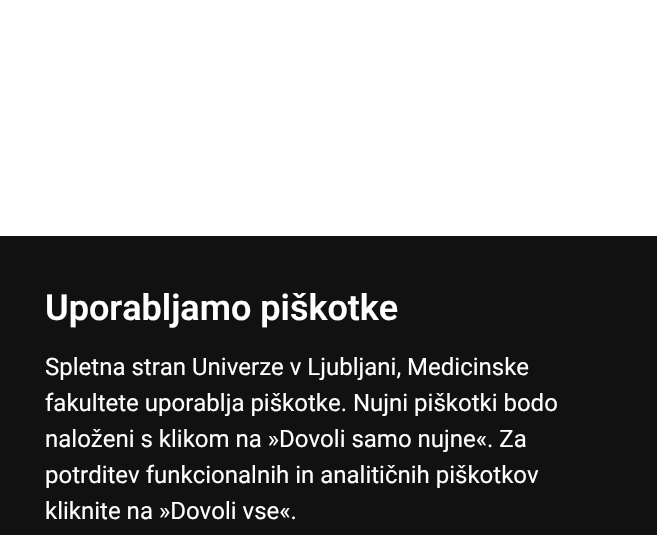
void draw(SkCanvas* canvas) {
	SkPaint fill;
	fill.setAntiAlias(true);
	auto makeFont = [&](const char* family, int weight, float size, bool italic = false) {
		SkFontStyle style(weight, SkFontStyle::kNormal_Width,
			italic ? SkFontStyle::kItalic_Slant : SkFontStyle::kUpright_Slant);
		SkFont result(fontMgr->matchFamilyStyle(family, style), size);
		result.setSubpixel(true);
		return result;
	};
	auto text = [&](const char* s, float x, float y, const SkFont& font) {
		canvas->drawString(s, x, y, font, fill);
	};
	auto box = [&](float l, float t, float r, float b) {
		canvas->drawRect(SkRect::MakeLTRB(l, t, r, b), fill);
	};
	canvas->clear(0xFFFFFFFF);
	fill.setColor(0xFF111111);
	box(0, 236, 657, 535);
	auto font1 = makeFont("Roboto", 600, 36);
	fill.setColor(0xFFFFFFFF);
	text("Uporabljamo piškotke", 45, 320, font1);
	auto font2 = makeFont("Roboto", 400, 24);
	text("Spletna stran Univerze v Ljubljani, Medicinske", 45, 375, font2);
	text("fakultete uporablja piškotke. Nujni piškotki bodo", 45, 411, font2);
	text("naloženi s klikom na »Dovoli samo nujne«. Za", 45, 447, font2);
	text("potrditev funkcionalnih in analitičnih piškotkov", 45, 483, font2);
	text("kliknite na »Dovoli vse«.", 45, 519, font2);
}
